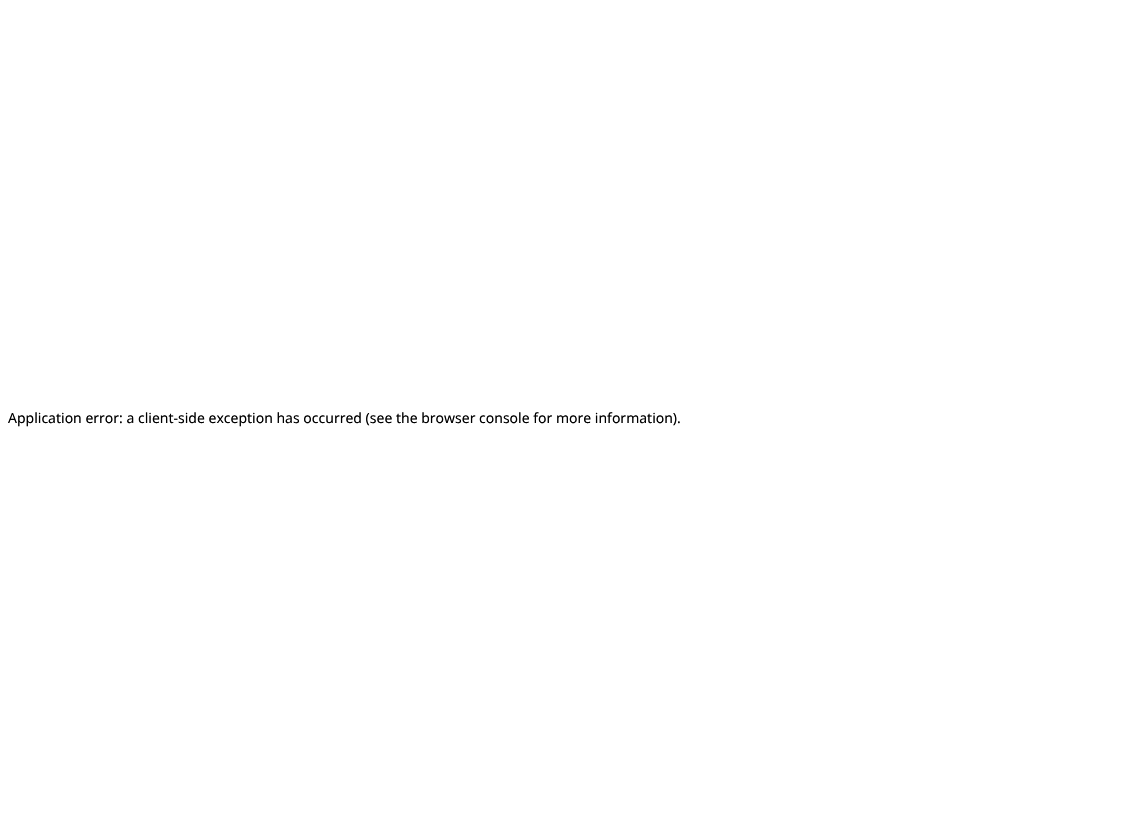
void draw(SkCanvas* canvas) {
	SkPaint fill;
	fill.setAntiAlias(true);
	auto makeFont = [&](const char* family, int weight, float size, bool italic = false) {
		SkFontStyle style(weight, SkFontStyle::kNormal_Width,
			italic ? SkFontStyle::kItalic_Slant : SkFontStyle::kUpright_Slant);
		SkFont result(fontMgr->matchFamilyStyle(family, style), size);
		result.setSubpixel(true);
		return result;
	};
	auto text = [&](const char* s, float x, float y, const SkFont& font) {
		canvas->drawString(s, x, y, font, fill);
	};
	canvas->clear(0xFFFFFFFF);
	auto font1 = makeFont("Noto Sans", 400, 14);
	fill.setColor(0xFF000000);
	text("Application error: a client-side exception has occurred (see the browser console for more information).", 8, 423, font1);
}
